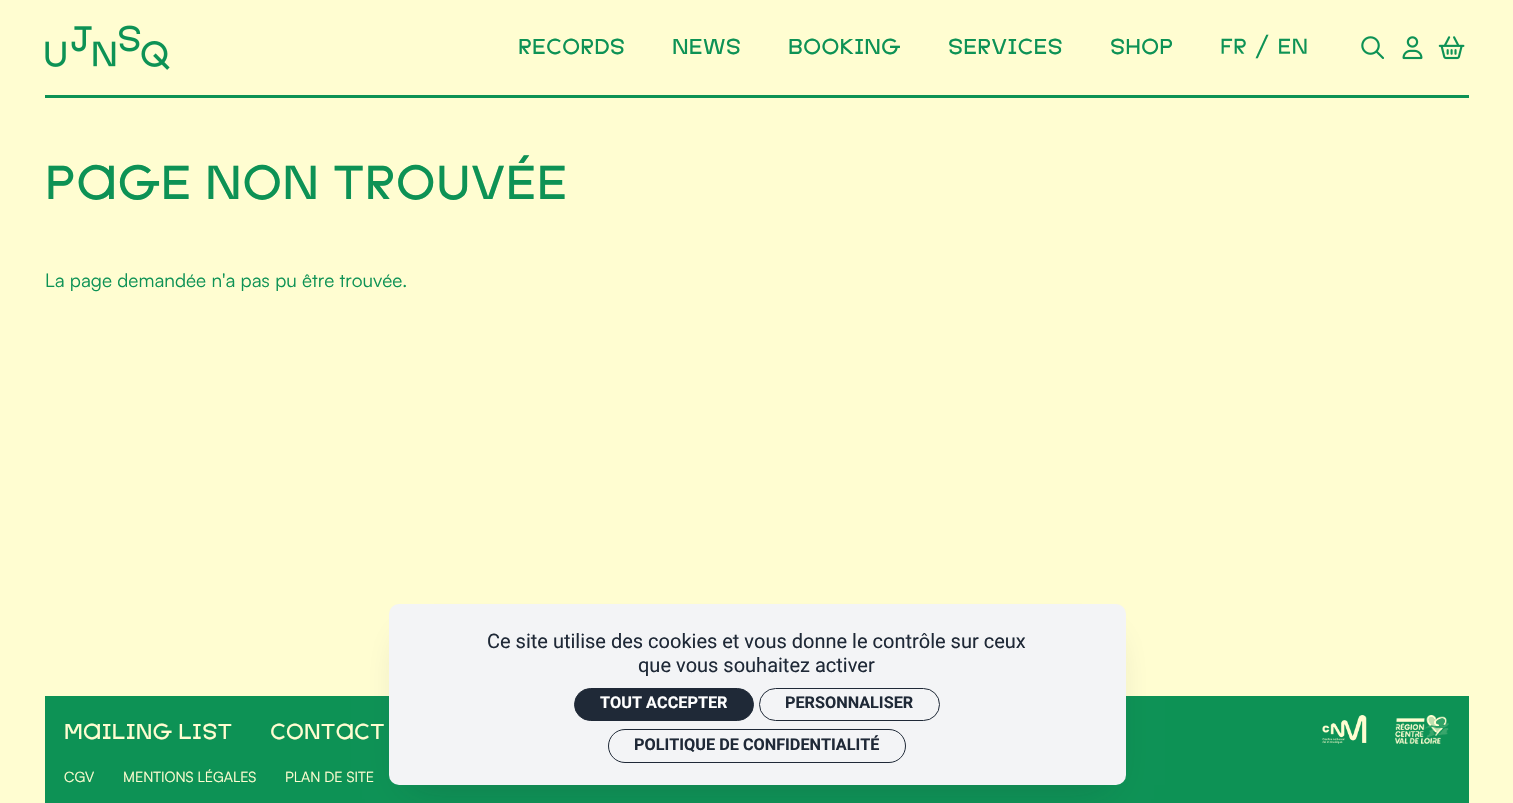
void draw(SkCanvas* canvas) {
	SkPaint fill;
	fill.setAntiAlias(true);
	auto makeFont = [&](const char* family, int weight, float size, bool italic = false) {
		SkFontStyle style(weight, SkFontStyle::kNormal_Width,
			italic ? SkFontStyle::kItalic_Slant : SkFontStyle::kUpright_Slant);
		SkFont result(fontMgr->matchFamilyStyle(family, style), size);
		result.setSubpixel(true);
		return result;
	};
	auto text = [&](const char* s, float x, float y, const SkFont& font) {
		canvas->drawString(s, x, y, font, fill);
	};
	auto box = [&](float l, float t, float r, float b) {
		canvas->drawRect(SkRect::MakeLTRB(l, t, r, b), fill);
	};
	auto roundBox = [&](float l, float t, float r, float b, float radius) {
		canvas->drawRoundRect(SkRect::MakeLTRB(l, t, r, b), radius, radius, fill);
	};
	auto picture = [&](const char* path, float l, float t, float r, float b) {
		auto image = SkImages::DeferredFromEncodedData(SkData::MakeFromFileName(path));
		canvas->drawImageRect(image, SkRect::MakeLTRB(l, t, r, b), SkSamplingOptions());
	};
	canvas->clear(0xFFFFFDD1);
	fill.setColor(0xFF0D9255);
	box(45, 95, 1469, 98);
	picture("image0.png", 45, 25, 170, 70);
	picture("image1.png", 1221, 38, 1246, 54);
	picture("image2.png", 1279, 38, 1307, 54);
	picture("image3.png", 1361, 36, 1384, 59);
	picture("image4.png", 1402, 36, 1423, 60);
	picture("image5.png", 1438, 36, 1465, 60);
	box(45, 696, 1469, 803);
	picture("image6.png", 1322, 715, 1367, 744);
	picture("image7.png", 1395, 715, 1449, 744);
	fill.setColor(0x33222230);
	fill.setMaskFilter(SkMaskFilter::MakeBlur(kNormal_SkBlurStyle, 19));
	canvas->drawRect(SkRect::MakeLTRB(408, 641, 1108, 785), fill);
	fill.setMaskFilter(nullptr);
	fill.setColor(0xFFF3F4F6);
	roundBox(389, 604, 1126, 785, 10);
	fill.setColor(0xFF1F2937);
	canvas->drawRoundRect(SkRect::MakeLTRB(574.5f, 688.5f, 753.5f, 720.5f), 16, 16, fill);
	fill.setStyle(SkPaint::kStroke_Style);
	fill.setStrokeWidth(1);
	canvas->drawRoundRect(SkRect::MakeLTRB(574.5f, 688.5f, 753.5f, 720.5f), 16, 16, fill);
	canvas->drawRoundRect(SkRect::MakeLTRB(759.5f, 688.5f, 939.5f, 720.5f), 16, 16, fill);
	canvas->drawRoundRect(SkRect::MakeLTRB(608.5f, 729.5f, 905.5f, 762.5f), 16.5f, 16.5f, fill);
	auto font1 = makeFont("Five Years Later", 400, 21.5f, true);
	fill.setStyle(SkPaint::kFill_Style);
	fill.setColor(0xFF0D9255);
	text("RECORDS", 518, 54, font1);
	text("NEWS", 672, 54, font1);
	text("BOOKING", 788, 54, font1);
	text("SERVICES", 948, 54, font1);
	text("SHOP", 1110, 54, font1);
	text("/", 1256, 54, font1);
	auto font2 = makeFont("Five Years Later", 400, 47.5f, true);
	text("PAGE NON TROUVÉE", 45, 199, font2);
	auto font3 = makeFont("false", 400, 19);
	text("La page demandée n'a pas pu être trouvée.", 45, 287, font3);
	fill.setColor(0xFFFFFDD1);
	text("MAILING LIST", 64, 739, font1);
	text("CONTACT", 270, 739, font1);
	auto font4 = makeFont("false", 400, 14.25f);
	text("CGV", 64, 782, font4);
	text("MENTIONS LÉGALES", 123, 782, font4);
	text("PLAN DE SITE", 285, 782, font4);
	auto font5 = makeFont("Roboto", 400, 20);
	fill.setColor(0xFF1F2937);
	text("Ce site utilise des cookies et vous donne le contrôle sur ceux", 487, 648, font5);
	text("que vous souhaitez activer", 638, 672, font5);
	auto font6 = makeFont("Roboto", 700, 16.25f);
	fill.setColor(0xFFFFFFFF);
	text("TOUT ACCEPTER", 600, 708, font6);
	fill.setColor(0xFF1F2937);
	text("PERSONNALISER", 785, 708, font6);
	text("POLITIQUE DE CONFIDENTIALITÉ", 634, 750, font6);
}
